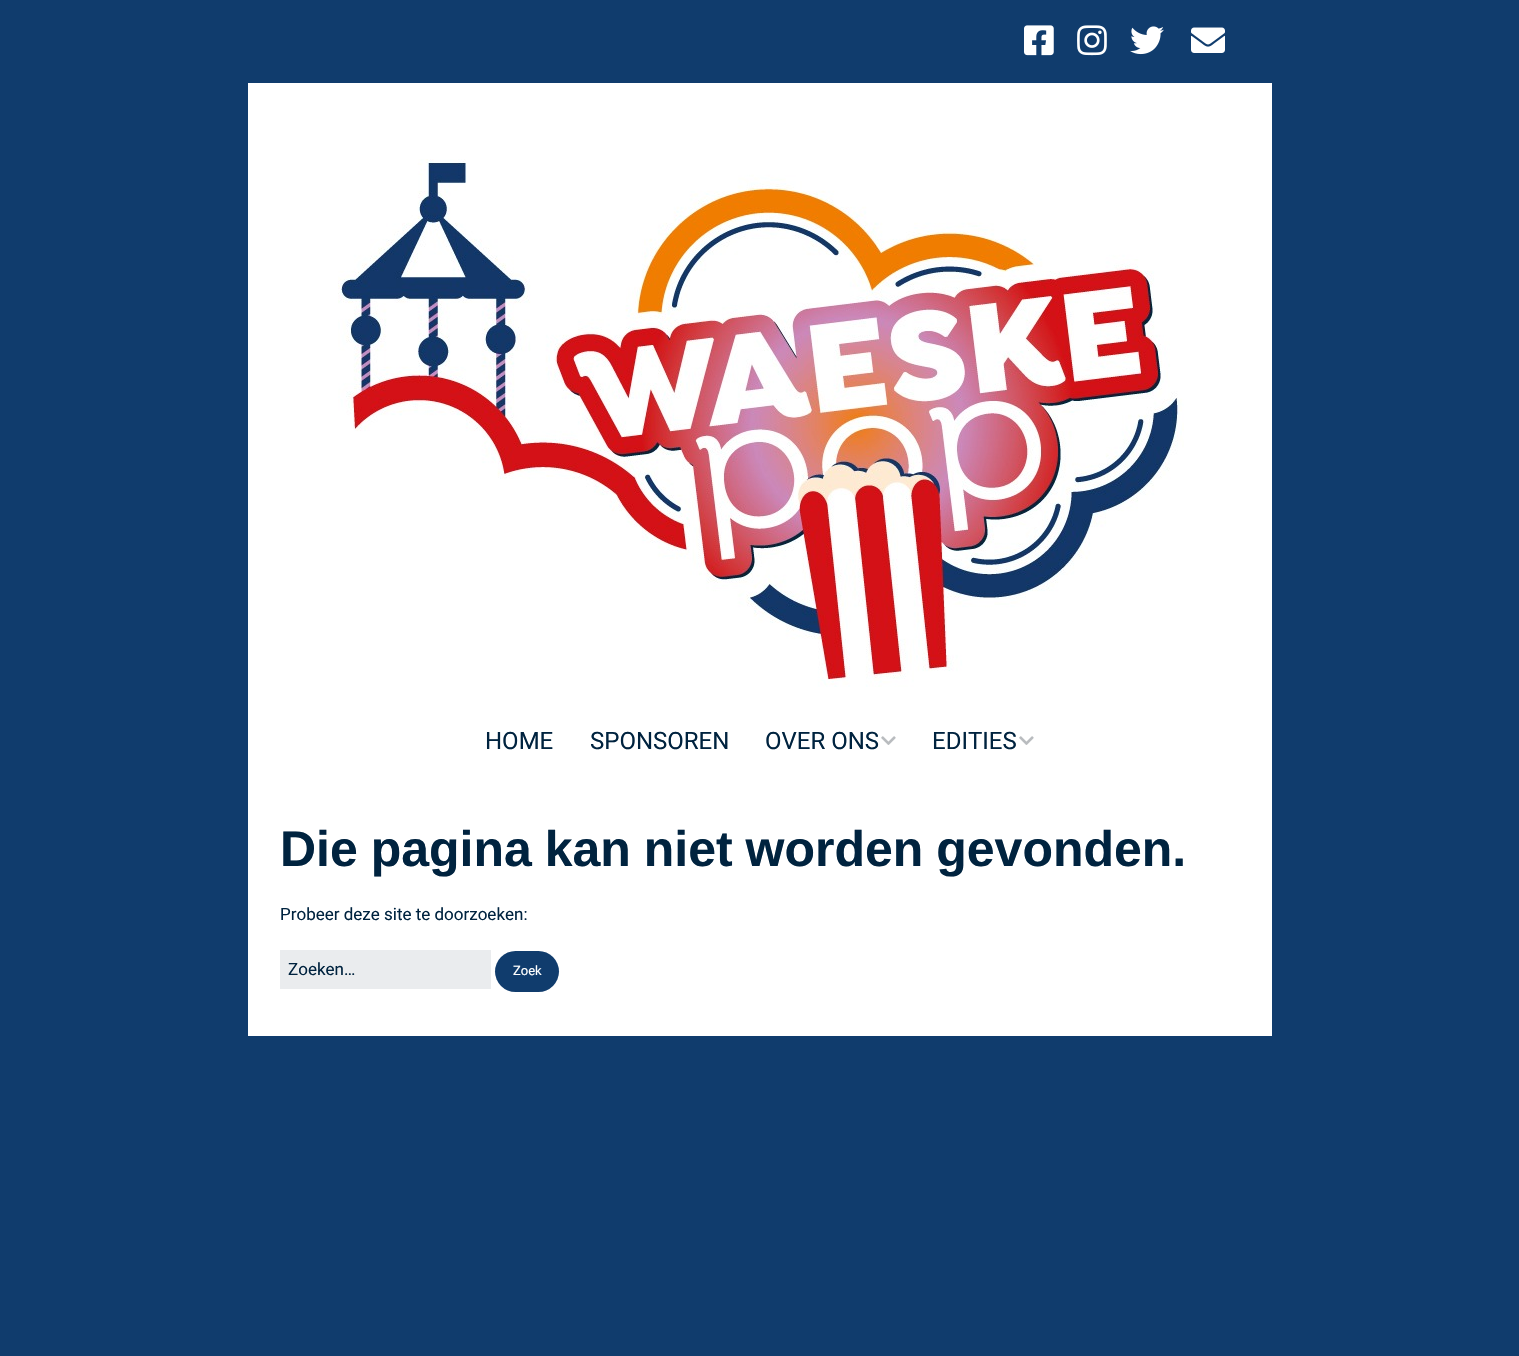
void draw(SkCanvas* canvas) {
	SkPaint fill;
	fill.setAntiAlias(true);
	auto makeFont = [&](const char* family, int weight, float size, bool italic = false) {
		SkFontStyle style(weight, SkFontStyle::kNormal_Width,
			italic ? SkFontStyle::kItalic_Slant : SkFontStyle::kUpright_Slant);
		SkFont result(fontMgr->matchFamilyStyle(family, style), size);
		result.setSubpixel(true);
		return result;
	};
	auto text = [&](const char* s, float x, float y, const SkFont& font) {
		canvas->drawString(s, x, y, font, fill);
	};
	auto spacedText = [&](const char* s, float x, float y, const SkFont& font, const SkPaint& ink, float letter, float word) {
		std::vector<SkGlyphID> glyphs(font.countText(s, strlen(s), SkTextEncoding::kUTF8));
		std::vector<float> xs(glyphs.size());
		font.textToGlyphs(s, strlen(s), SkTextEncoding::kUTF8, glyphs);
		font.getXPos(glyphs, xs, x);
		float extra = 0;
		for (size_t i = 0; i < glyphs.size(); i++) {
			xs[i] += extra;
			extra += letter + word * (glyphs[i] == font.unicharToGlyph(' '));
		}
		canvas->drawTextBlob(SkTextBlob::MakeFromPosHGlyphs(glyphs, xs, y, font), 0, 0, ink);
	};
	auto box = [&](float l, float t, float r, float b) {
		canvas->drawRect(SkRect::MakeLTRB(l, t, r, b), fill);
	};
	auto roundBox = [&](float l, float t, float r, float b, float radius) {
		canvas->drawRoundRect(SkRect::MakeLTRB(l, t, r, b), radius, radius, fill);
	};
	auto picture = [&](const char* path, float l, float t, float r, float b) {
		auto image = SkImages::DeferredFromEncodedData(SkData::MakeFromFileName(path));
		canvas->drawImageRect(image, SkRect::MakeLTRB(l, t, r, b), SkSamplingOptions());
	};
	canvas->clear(0xFF103C6D);
	picture("image0.png", 1024, 25, 1054, 56);
	picture("image1.png", 1077, 25, 1107, 56);
	picture("image2.png", 1130, 26, 1164, 55);
	picture("image3.png", 1191, 27, 1225, 53);
	fill.setColor(0xFFFFFFFF);
	box(248, 83, 1272, 1036);
	picture("image4.png", 338, 159, 1184, 687);
	picture("image5.png", 881, 736, 896, 745);
	picture("image5.png", 1019, 736, 1034, 745);
	fill.setColor(0xFFEAECEE);
	box(280, 950, 491, 989);
	fill.setColor(0xFF103C6D);
	roundBox(495, 951, 559, 992, 20.5f);
	auto font1 = makeFont("Roboto", 400, 24);
	fill.setColor(0xFF00233F);
	text("HOME", 485, 749, font1);
	text("SPONSOREN", 590, 749, font1);
	text("OVER ONS", 765, 749, font1);
	text("EDITIES", 932, 749, font1);
	auto font2 = makeFont("Liberation Sans", 700, 50);
	spacedText("Die pagina kan niet worden gevonden.", 280, 866, font2, fill, 0, -1);
	auto font3 = makeFont("Roboto", 400, 17);
	text("Probeer deze site te doorzoeken:", 280, 920, font3);
	text("Zoeken…", 288, 975, font3);
	auto font4 = makeFont("Roboto", 400, 13);
	fill.setColor(0xFFFFFFFF);
	text("Zoek", 513, 975, font4);
}
